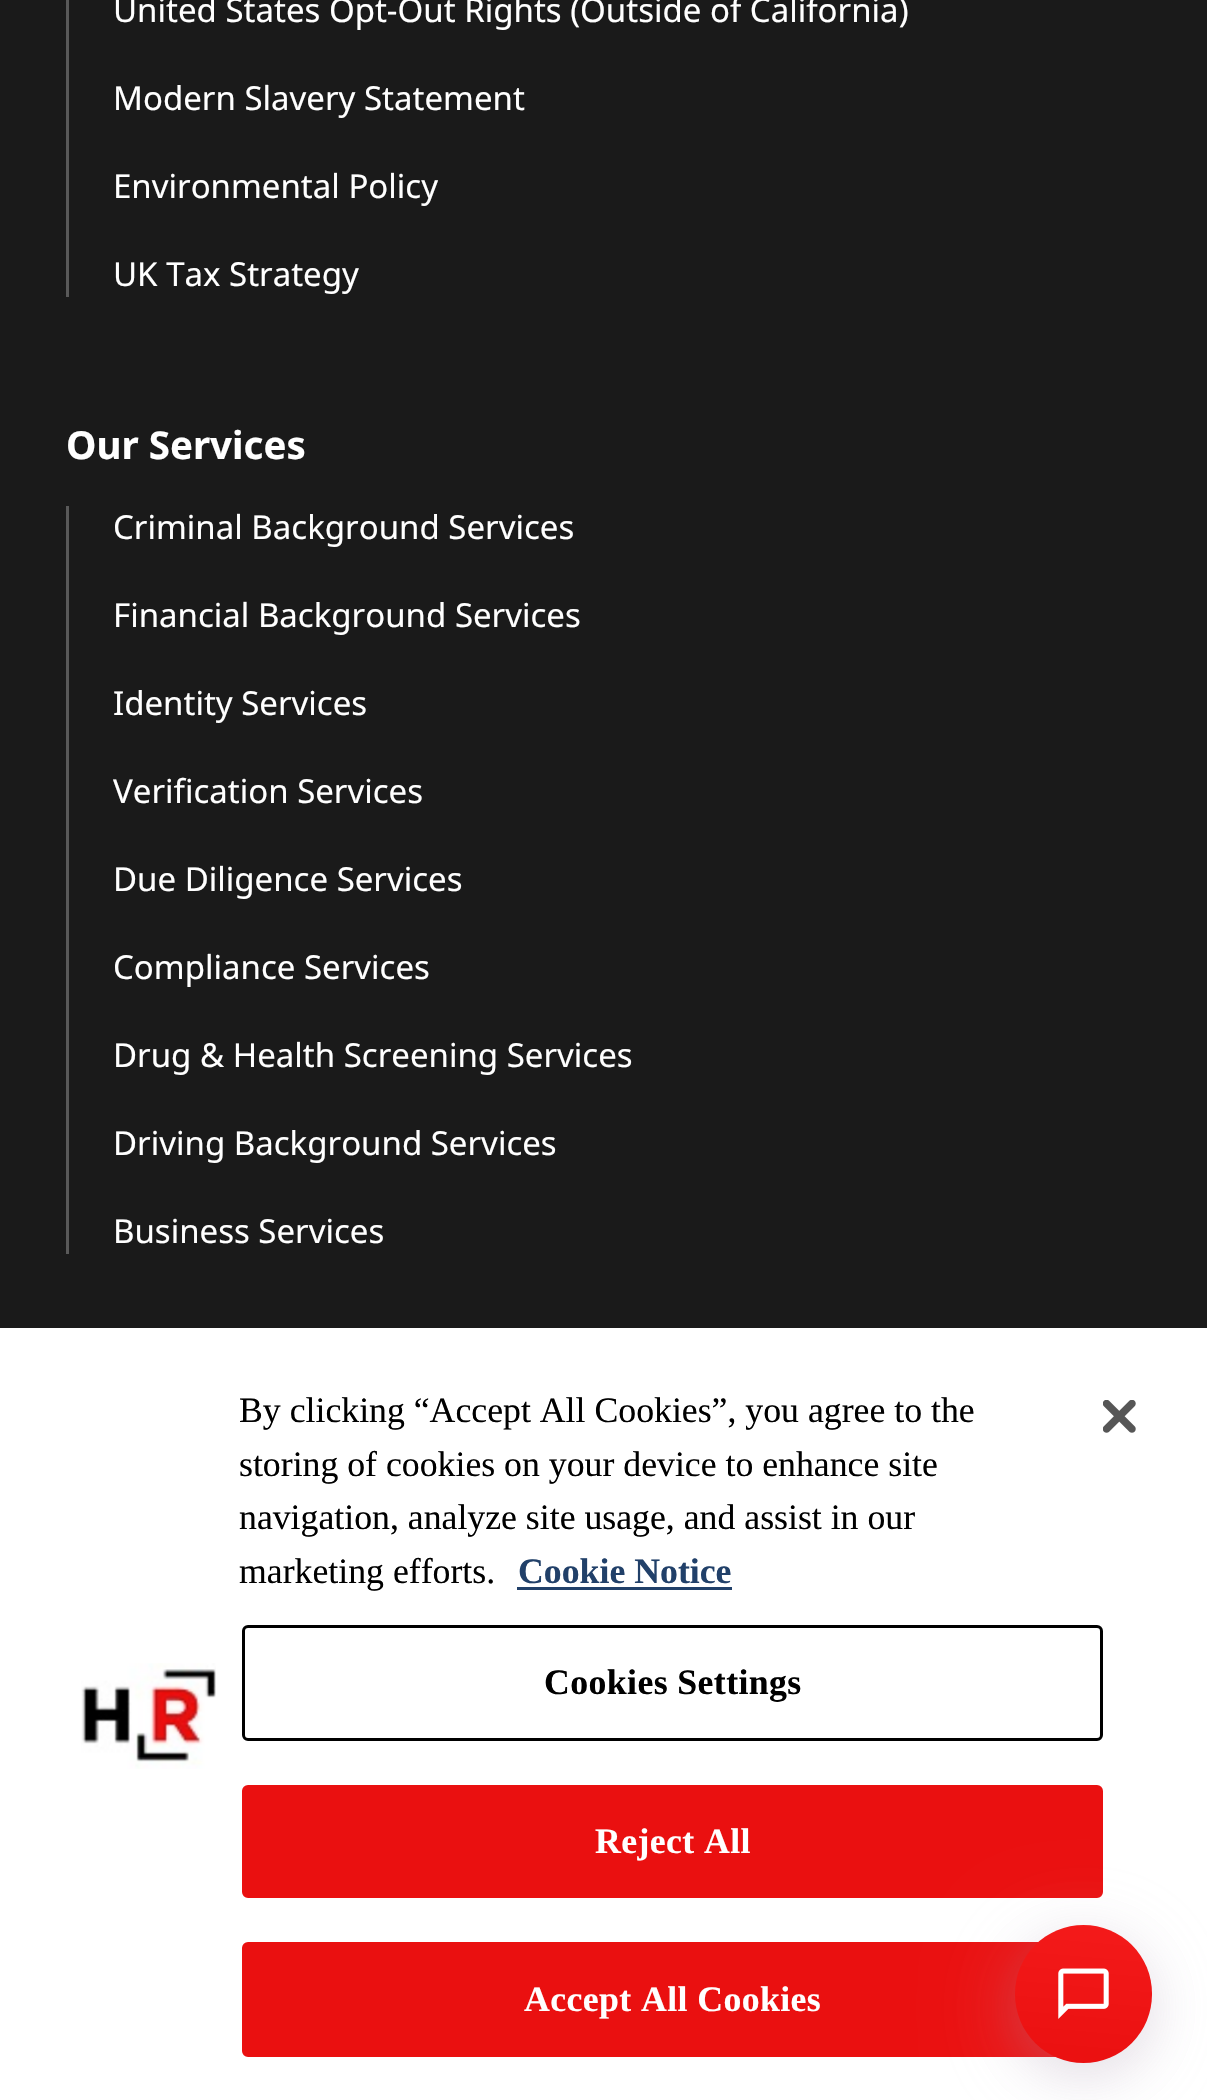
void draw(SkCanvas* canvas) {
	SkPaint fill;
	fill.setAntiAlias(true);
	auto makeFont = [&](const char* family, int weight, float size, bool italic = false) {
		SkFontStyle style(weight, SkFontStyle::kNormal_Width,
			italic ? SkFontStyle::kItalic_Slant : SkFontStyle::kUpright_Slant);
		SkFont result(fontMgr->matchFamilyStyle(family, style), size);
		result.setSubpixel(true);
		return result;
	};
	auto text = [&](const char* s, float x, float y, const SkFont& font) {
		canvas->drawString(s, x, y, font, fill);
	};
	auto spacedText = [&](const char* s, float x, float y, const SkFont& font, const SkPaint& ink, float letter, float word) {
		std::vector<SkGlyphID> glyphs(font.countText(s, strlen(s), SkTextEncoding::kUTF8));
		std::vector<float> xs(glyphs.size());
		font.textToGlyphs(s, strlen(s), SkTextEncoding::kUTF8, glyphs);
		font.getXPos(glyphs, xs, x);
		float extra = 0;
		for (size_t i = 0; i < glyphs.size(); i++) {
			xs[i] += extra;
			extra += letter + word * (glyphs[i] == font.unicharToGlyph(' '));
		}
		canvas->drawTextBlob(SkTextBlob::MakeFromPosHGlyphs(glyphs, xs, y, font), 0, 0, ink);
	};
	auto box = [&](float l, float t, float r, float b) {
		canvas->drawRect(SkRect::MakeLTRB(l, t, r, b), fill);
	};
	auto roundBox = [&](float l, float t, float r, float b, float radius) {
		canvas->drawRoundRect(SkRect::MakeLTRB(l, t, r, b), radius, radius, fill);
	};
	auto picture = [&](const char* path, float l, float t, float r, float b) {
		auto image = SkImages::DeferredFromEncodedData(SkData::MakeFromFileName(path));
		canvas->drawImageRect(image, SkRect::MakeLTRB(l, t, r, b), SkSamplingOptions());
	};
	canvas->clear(0xFF1A1A1A);
	fill.setColor(0xFF595959);
	box(66, 0, 69, 297);
	box(66, 506, 69, 1254);
	fill.setColor(0xFFFFFFFF);
	box(0, 1328, 1207, 2100);
	fill.setColor(0xFF214069);
	box(517, 1587, 732, 1590);
	picture("image0.png", 81, 1663, 216, 1769);
	fill.setStyle(SkPaint::kStroke_Style);
	fill.setStrokeWidth(3);
	fill.setColor(0xFF000000);
	canvas->drawRoundRect(SkRect::MakeLTRB(243.5f, 1626.5f, 1101.5f, 1739.5f), 4.5f, 4.5f, fill);
	fill.setStyle(SkPaint::kFill_Style);
	fill.setColor(0xFFEA1010);
	canvas->drawRoundRect(SkRect::MakeLTRB(243.5f, 1786.5f, 1101.5f, 1896.5f), 4.5f, 4.5f, fill);
	fill.setStyle(SkPaint::kStroke_Style);
	canvas->drawRoundRect(SkRect::MakeLTRB(243.5f, 1786.5f, 1101.5f, 1896.5f), 4.5f, 4.5f, fill);
	fill.setStyle(SkPaint::kFill_Style);
	canvas->drawRoundRect(SkRect::MakeLTRB(243.5f, 1943.5f, 1101.5f, 2055.5f), 4.5f, 4.5f, fill);
	fill.setStyle(SkPaint::kStroke_Style);
	canvas->drawRoundRect(SkRect::MakeLTRB(243.5f, 1943.5f, 1101.5f, 2055.5f), 4.5f, 4.5f, fill);
	picture("image1.png", 1103, 1400, 1136, 1433);
	fill.setStyle(SkPaint::kFill_Style);
	fill.setColor(0x33CBC3D4);
	fill.setMaskFilter(SkMaskFilter::MakeBlur(kNormal_SkBlurStyle, 44));
	canvas->drawRoundRect(SkRect::MakeLTRB(1015, 1939, 1152, 2076), 68.5f, 68.5f, fill);
	fill.setMaskFilter(nullptr);
	fill.setColor(0x33977C9C);
	fill.setMaskFilter(SkMaskFilter::MakeBlur(kNormal_SkBlurStyle, 25));
	canvas->drawRoundRect(SkRect::MakeLTRB(1015, 1939, 1152, 2076), 68.5f, 68.5f, fill);
	fill.setMaskFilter(nullptr);
	{
		const SkColor colors[] = {0xFFF41A1A, 0xFFEA1010};
		const float stops[] = {0, 1};
		const SkPoint ends[] = {{1090, 1920}, {1077, 2068}};
		fill.setShader(SkGradientShader::MakeLinear(ends, colors, stops, 2, SkTileMode::kClamp));
		fill.setAlpha(255);
	}
	roundBox(1015, 1925, 1152, 2063, 68.5f);
	picture("image2.png", 1058, 1968, 1109, 2019);
	auto font1 = makeFont("Noto Sans", 400, 33);
	fill.setShader(nullptr);
	fill.setColor(0xFFFFFFFF);
	text("United States Opt-Out Rights (Outside of California)", 113, 22, font1);
	text("Modern Slavery Statement", 113, 110, font1);
	text("Environmental Policy", 113, 198, font1);
	text("UK Tax Strategy", 113, 286, font1);
	auto font2 = makeFont("Noto Sans", 700, 38.5f);
	text("Our Services", 66, 459, font2);
	text("Criminal Background Services", 113, 539, font1);
	text("Financial Background Services", 113, 627, font1);
	text("Identity Services", 113, 715, font1);
	text("Verification Services", 113, 803, font1);
	text("Due Diligence Services", 113, 891, font1);
	text("Compliance Services", 113, 979, font1);
	text("Drug & Health Screening Services", 113, 1067, font1);
	text("Driving Background Services", 113, 1155, font1);
	text("Business Services", 113, 1243, font1);
	auto font3 = makeFont("Liberation Serif", 400, 35.75f);
	fill.setColor(0xFF000000);
	text("By clicking “Accept All Cookies”, you agree to the", 239, 1422, font3);
	text("storing of cookies on your device to enhance site", 239, 1476, font3);
	text("navigation, analyze site usage, and assist in our", 239, 1529, font3);
	text("marketing efforts.", 239, 1583, font3);
	auto font4 = makeFont("Liberation Serif", 700, 35.75f);
	fill.setColor(0xFF214069);
	text("Cookie Notice", 518, 1583, font4);
	fill.setColor(0xFF000000);
	spacedText("Cookies Settings", 544, 1694, font4, fill, 0.4f, 0);
	fill.setColor(0xFFFFFFFF);
	spacedText("Reject All", 595, 1853, font4, fill, 0.4f, 0);
	spacedText("Accept All Cookies", 524, 2011, font4, fill, 0.4f, 0);
}
